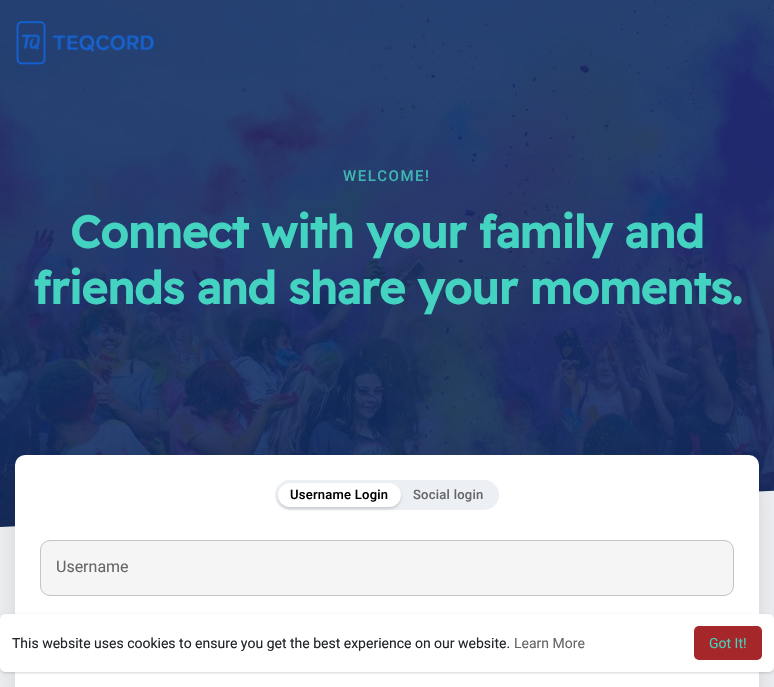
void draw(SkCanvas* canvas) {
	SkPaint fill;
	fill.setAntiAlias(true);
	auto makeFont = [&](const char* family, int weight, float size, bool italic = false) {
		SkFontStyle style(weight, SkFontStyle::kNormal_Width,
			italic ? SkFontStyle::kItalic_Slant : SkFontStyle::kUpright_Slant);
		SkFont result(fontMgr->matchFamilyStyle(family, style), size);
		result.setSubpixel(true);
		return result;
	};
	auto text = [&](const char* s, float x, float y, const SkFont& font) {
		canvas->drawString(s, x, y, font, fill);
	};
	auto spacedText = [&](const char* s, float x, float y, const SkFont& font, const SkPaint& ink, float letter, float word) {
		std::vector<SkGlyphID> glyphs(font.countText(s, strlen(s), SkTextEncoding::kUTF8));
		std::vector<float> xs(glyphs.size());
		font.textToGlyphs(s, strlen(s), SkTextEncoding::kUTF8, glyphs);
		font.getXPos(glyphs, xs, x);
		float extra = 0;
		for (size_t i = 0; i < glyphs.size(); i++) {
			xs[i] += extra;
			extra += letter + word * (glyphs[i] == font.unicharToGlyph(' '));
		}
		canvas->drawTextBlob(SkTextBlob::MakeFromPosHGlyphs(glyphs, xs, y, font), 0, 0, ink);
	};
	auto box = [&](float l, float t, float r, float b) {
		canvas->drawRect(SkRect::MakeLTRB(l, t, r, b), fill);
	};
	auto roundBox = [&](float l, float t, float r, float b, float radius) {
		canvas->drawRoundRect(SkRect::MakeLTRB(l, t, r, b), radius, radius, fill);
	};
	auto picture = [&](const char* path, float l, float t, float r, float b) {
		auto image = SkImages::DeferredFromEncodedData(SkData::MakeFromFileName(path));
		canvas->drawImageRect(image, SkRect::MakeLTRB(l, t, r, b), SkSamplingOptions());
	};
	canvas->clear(0xFFF0F2F5);
	fill.setColor(0xFF102D62);
	box(0, 0, 774, 527);
	picture("image0.png", 0, 0, 774, 527);
	picture("image1.png", 16, 21, 154, 65);
	canvas->save();
	canvas->clipRect(SkRect::MakeLTRB(0, 0, 774, 565));
	fill.setColor(0xFFF0F2F5);
	canvas->drawPath(SkPathBuilder().moveTo(-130, 533).lineTo(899, 485).lineTo(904, 604).lineTo(-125, 653).close().detach(), fill);
	canvas->restore();
	fill.setColor(0x1A000000);
	fill.setMaskFilter(SkMaskFilter::MakeBlur(kNormal_SkBlurStyle, 20));
	canvas->drawRoundRect(SkRect::MakeLTRB(15, 470, 759, 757), 10, 10, fill);
	fill.setMaskFilter(nullptr);
	fill.setColor(0x0D000000);
	fill.setMaskFilter(SkMaskFilter::MakeBlur(kNormal_SkBlurStyle, 5));
	canvas->drawRoundRect(SkRect::MakeLTRB(15, 460, 759, 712), 10, 10, fill);
	fill.setMaskFilter(nullptr);
	fill.setColor(0xFFFFFFFF);
	roundBox(15, 455, 759, 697, 10);
	fill.setColor(0xFFECF0F5);
	roundBox(275, 480, 499, 510, 15);
	fill.setColor(0x26000000);
	fill.setMaskFilter(SkMaskFilter::MakeBlur(kNormal_SkBlurStyle, 1.5f));
	canvas->drawRoundRect(SkRect::MakeLTRB(278, 485, 401, 509), 12, 12, fill);
	fill.setMaskFilter(nullptr);
	fill.setColor(0xFFFFFFFF);
	roundBox(278, 483, 401, 507, 12);
	fill.setColor(0xFFF5F5F5);
	roundBox(40, 540, 734, 596, 10);
	fill.setStyle(SkPaint::kStroke_Style);
	fill.setStrokeWidth(1);
	fill.setColor(0x33000000);
	canvas->drawRoundRect(SkRect::MakeLTRB(40.5f, 540.5f, 733.5f, 595.5f), 9.5f, 9.5f, fill);
	fill.setStyle(SkPaint::kFill_Style);
	fill.setColor(0x0F000000);
	fill.setMaskFilter(SkMaskFilter::MakeBlur(kNormal_SkBlurStyle, 1));
	canvas->drawRoundRect(SkRect::MakeLTRB(0, 615, 774, 673), 5, 5, fill);
	fill.setMaskFilter(nullptr);
	fill.setColor(0x1A000000);
	fill.setMaskFilter(SkMaskFilter::MakeBlur(kNormal_SkBlurStyle, 1.5f));
	canvas->drawRoundRect(SkRect::MakeLTRB(0, 615, 774, 673), 5, 5, fill);
	fill.setMaskFilter(nullptr);
	fill.setColor(0xFFFFFFFF);
	roundBox(0, 614, 774, 672, 5);
	fill.setColor(0xFFA52729);
	roundBox(694, 626, 762, 660, 5);
	auto font1 = makeFont("Roboto", 500, 15);
	fill.setColor(0xFF3EB5B0);
	spacedText("WELCOME!", 343, 181, font1, fill, 1.5f, 0);
	auto font2 = makeFont("Readex Pro", 700, 45);
	fill.setColor(0xFF44D3C0);
	spacedText("Connect with your family and", 70, 248, font2, fill, -0.5f, 0);
	spacedText("friends and share your moments.", 33, 304, font2, fill, -0.5f, 0);
	auto font3 = makeFont("Roboto", 500, 13);
	fill.setColor(0xFF000000);
	spacedText("Username Login", 290, 499, font3, fill, 0.25f, 0);
	fill.setColor(0xFF666666);
	spacedText("Social login", 413, 499, font3, fill, 0.25f, 0);
	auto font4 = makeFont("Roboto", 400, 16);
	text("Username", 56, 572, font4);
	auto font5 = makeFont("Roboto", 400, 14);
	fill.setColor(0xFF212529);
	text("This website uses cookies to ensure you get the best experience on our website.", 12, 648, font5);
	fill.setColor(0xFF666666);
	text("Learn More", 514, 648, font5);
	fill.setColor(0xFF44D3C0);
	text("Got It!", 709, 648, font5);
}
